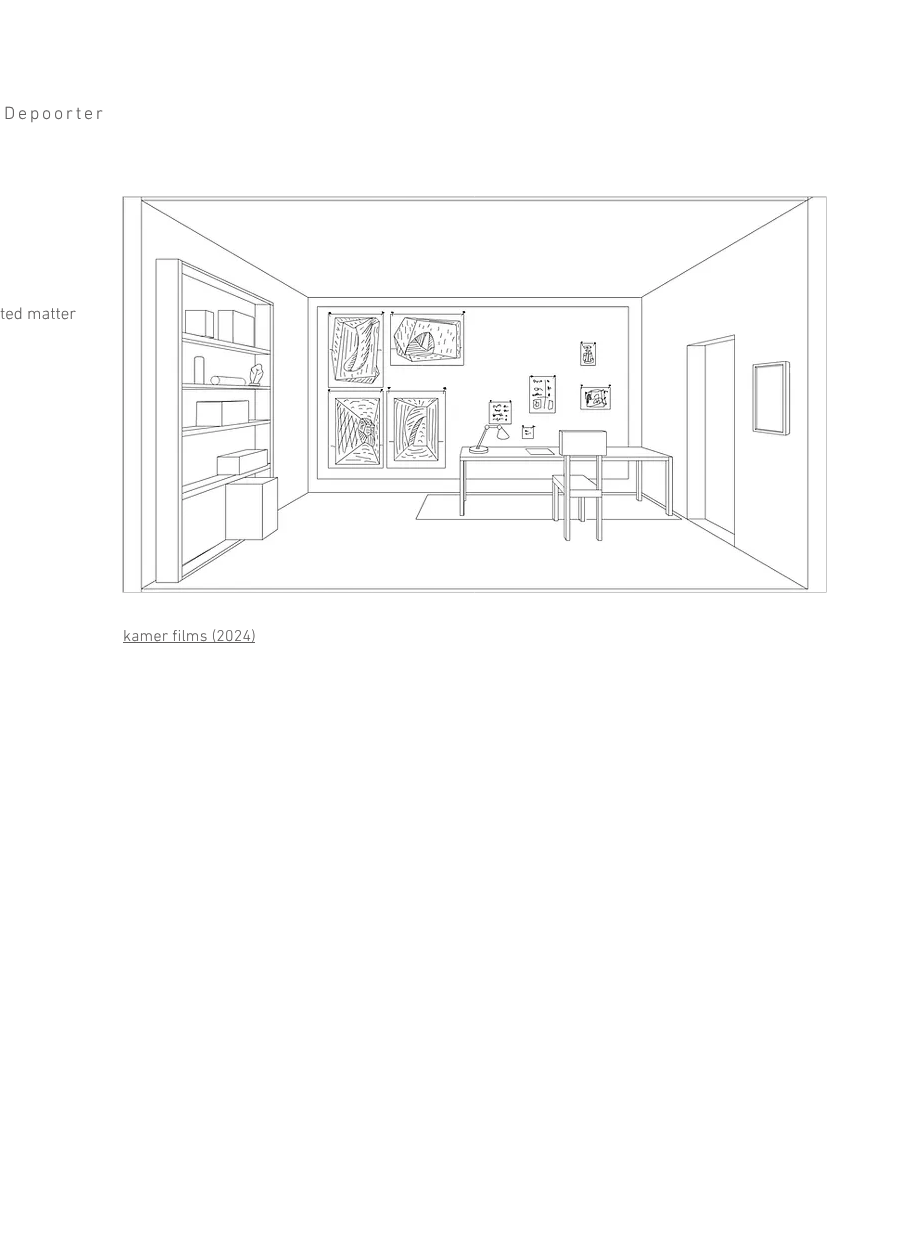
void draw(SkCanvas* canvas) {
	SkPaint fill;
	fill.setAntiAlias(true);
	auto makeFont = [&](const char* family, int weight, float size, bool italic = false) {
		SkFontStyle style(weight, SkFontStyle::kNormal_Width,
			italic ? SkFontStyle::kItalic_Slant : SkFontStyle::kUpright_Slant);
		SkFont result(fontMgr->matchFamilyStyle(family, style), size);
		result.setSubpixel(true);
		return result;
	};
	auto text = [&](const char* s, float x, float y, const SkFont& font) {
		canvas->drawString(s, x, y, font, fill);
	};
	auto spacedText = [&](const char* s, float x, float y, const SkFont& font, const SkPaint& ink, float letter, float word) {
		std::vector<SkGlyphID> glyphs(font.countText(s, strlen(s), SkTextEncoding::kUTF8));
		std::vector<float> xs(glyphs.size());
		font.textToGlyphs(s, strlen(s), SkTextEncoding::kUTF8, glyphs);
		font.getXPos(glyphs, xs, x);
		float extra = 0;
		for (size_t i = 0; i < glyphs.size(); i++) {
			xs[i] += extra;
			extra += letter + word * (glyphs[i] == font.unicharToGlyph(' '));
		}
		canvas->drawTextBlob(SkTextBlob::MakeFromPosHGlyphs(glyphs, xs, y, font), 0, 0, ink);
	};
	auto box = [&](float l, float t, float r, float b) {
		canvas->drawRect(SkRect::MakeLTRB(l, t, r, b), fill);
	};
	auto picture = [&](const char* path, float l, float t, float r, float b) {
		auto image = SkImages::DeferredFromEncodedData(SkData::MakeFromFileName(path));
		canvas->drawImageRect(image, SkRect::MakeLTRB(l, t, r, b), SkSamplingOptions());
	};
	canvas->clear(0xFFFFFFFF);
	fill.setStyle(SkPaint::kStroke_Style);
	fill.setStrokeWidth(1);
	fill.setColor(0xFFC7C7C7);
	canvas->drawRoundRect(SkRect::MakeLTRB(122.5f, 196.5f, 826.5f, 592.5f), 0.5f, 0.5f, fill);
	picture("image0.png", 123, 197, 826, 592);
	fill.setStyle(SkPaint::kFill_Style);
	fill.setColor(0xFF605E5E);
	box(123, 642, 255, 643);
	auto font1 = makeFont("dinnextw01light", 300, 18);
	spacedText("Depoorter", 4, 119, font1, fill, 2.75f, 0);
	auto font2 = makeFont("dinnextw01light", 300, 17);
	text("ted matter", 0, 319, font2);
	auto font3 = makeFont("dinnextw01light", 300, 16);
	spacedText("kamer films (2024)", 123, 641, font3, fill, 0.2f, 0);
}
